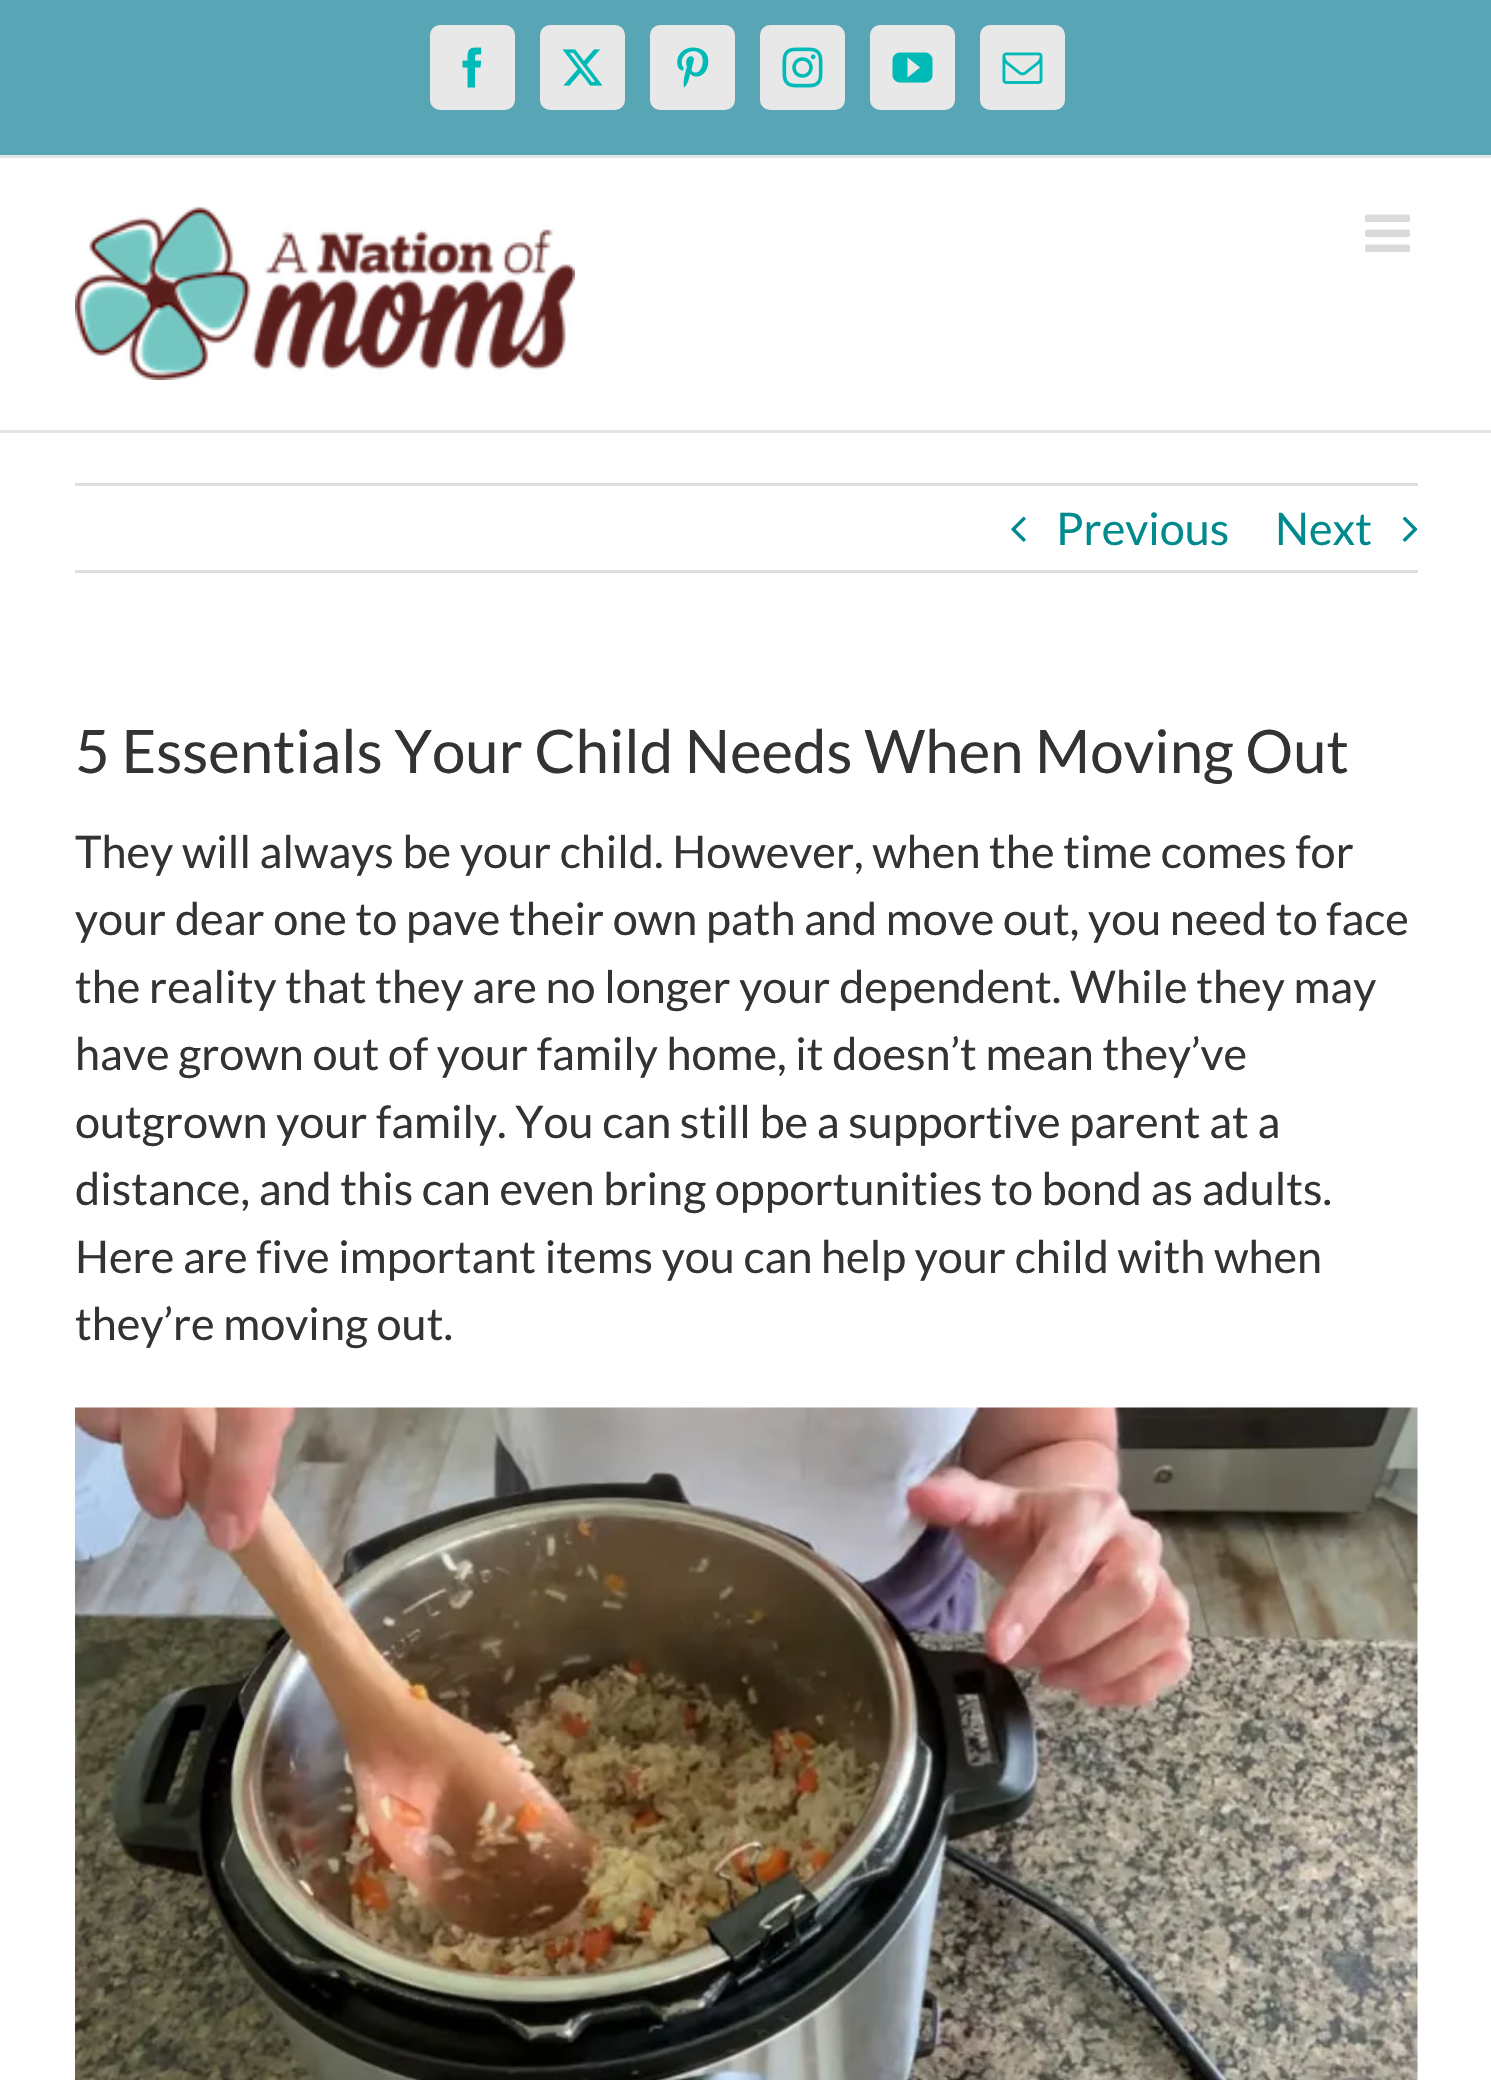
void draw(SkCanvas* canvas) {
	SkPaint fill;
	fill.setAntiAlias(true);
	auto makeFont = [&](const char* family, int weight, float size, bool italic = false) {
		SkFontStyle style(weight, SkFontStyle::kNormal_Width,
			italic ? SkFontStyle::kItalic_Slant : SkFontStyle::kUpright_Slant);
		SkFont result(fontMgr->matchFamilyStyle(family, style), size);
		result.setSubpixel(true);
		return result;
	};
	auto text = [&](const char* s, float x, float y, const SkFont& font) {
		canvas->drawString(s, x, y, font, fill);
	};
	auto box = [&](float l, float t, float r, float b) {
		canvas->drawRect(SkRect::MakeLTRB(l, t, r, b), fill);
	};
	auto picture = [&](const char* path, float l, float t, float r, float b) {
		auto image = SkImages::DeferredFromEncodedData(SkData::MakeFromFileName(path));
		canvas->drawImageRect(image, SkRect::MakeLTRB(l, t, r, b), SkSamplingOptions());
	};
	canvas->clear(0xFFFFFFFF);
	fill.setColor(0xFF58A5B5);
	box(0, 0, 1491, 155);
	fill.setColor(0xFFE5E5E5);
	box(0, 155, 1491, 158);
	fill.setColor(0xFFE8E8E8);
	canvas->drawRoundRect(SkRect::MakeLTRB(431.5f, 26.5f, 513.5f, 108.5f), 8.5f, 8.5f, fill);
	fill.setStyle(SkPaint::kStroke_Style);
	fill.setStrokeWidth(3);
	canvas->drawRoundRect(SkRect::MakeLTRB(431.5f, 26.5f, 513.5f, 108.5f), 8.5f, 8.5f, fill);
	picture("image0.png", 462, 47, 482, 88);
	fill.setStyle(SkPaint::kFill_Style);
	canvas->drawRoundRect(SkRect::MakeLTRB(541.5f, 26.5f, 623.5f, 108.5f), 8.5f, 8.5f, fill);
	fill.setStyle(SkPaint::kStroke_Style);
	canvas->drawRoundRect(SkRect::MakeLTRB(541.5f, 26.5f, 623.5f, 108.5f), 8.5f, 8.5f, fill);
	picture("image1.png", 562, 49, 603, 86);
	fill.setStyle(SkPaint::kFill_Style);
	canvas->drawRoundRect(SkRect::MakeLTRB(651.5f, 26.5f, 733.5f, 108.5f), 8.5f, 8.5f, fill);
	fill.setStyle(SkPaint::kStroke_Style);
	canvas->drawRoundRect(SkRect::MakeLTRB(651.5f, 26.5f, 733.5f, 108.5f), 8.5f, 8.5f, fill);
	picture("image2.png", 677, 47, 709, 88);
	fill.setStyle(SkPaint::kFill_Style);
	canvas->drawRoundRect(SkRect::MakeLTRB(761.5f, 26.5f, 843.5f, 108.5f), 8.5f, 8.5f, fill);
	fill.setStyle(SkPaint::kStroke_Style);
	canvas->drawRoundRect(SkRect::MakeLTRB(761.5f, 26.5f, 843.5f, 108.5f), 8.5f, 8.5f, fill);
	picture("image3.png", 782, 47, 823, 88);
	fill.setStyle(SkPaint::kFill_Style);
	canvas->drawRoundRect(SkRect::MakeLTRB(871.5f, 26.5f, 953.5f, 108.5f), 8.5f, 8.5f, fill);
	fill.setStyle(SkPaint::kStroke_Style);
	canvas->drawRoundRect(SkRect::MakeLTRB(871.5f, 26.5f, 953.5f, 108.5f), 8.5f, 8.5f, fill);
	picture("image4.png", 892, 52, 933, 83);
	fill.setStyle(SkPaint::kFill_Style);
	canvas->drawRoundRect(SkRect::MakeLTRB(981.5f, 26.5f, 1063.5f, 108.5f), 8.5f, 8.5f, fill);
	fill.setStyle(SkPaint::kStroke_Style);
	canvas->drawRoundRect(SkRect::MakeLTRB(981.5f, 26.5f, 1063.5f, 108.5f), 8.5f, 8.5f, fill);
	picture("image5.png", 1002, 52, 1043, 84);
	fill.setStyle(SkPaint::kFill_Style);
	fill.setColor(0xFFE5E5E5);
	box(0, 430, 1491, 433);
	picture("image6.png", 75, 207, 575, 380);
	picture("image7.png", 1365, 214, 1410, 252);
	fill.setColor(0xFFE0DEDE);
	box(75, 483, 1418, 486);
	box(75, 570, 1418, 573);
	picture("image8.png", 1011, 516, 1026, 542);
	picture("image9.png", 1402, 516, 1418, 542);
	picture("image10.png", 75, 1407, 1418, 2080);
	auto font1 = makeFont("Lato", 400, 45);
	fill.setColor(0xFF008A8E);
	text("Previous", 1056, 545, font1);
	text("Next", 1275, 545, font1);
	auto font2 = makeFont("Lato", 400, 60);
	fill.setColor(0xFF333333);
	text("5 Essentials Your Child Needs When Moving Out", 75, 773, font2);
	text("They will always be your child. However, when the time comes for", 75, 868, font1);
	text("your dear one to pave their own path and move out, you need to face", 75, 935, font1);
	text("the reality that they are no longer your dependent. While they may", 75, 1003, font1);
	text("have grown out of your family home, it doesn’t mean they’ve", 75, 1070, font1);
	text("outgrown your family. You can still be a supportive parent at a", 75, 1138, font1);
	text("distance, and this can even bring opportunities to bond as adults.", 75, 1205, font1);
	text("Here are five important items you can help your child with when", 75, 1273, font1);
	text("they’re moving out.", 75, 1340, font1);
}
